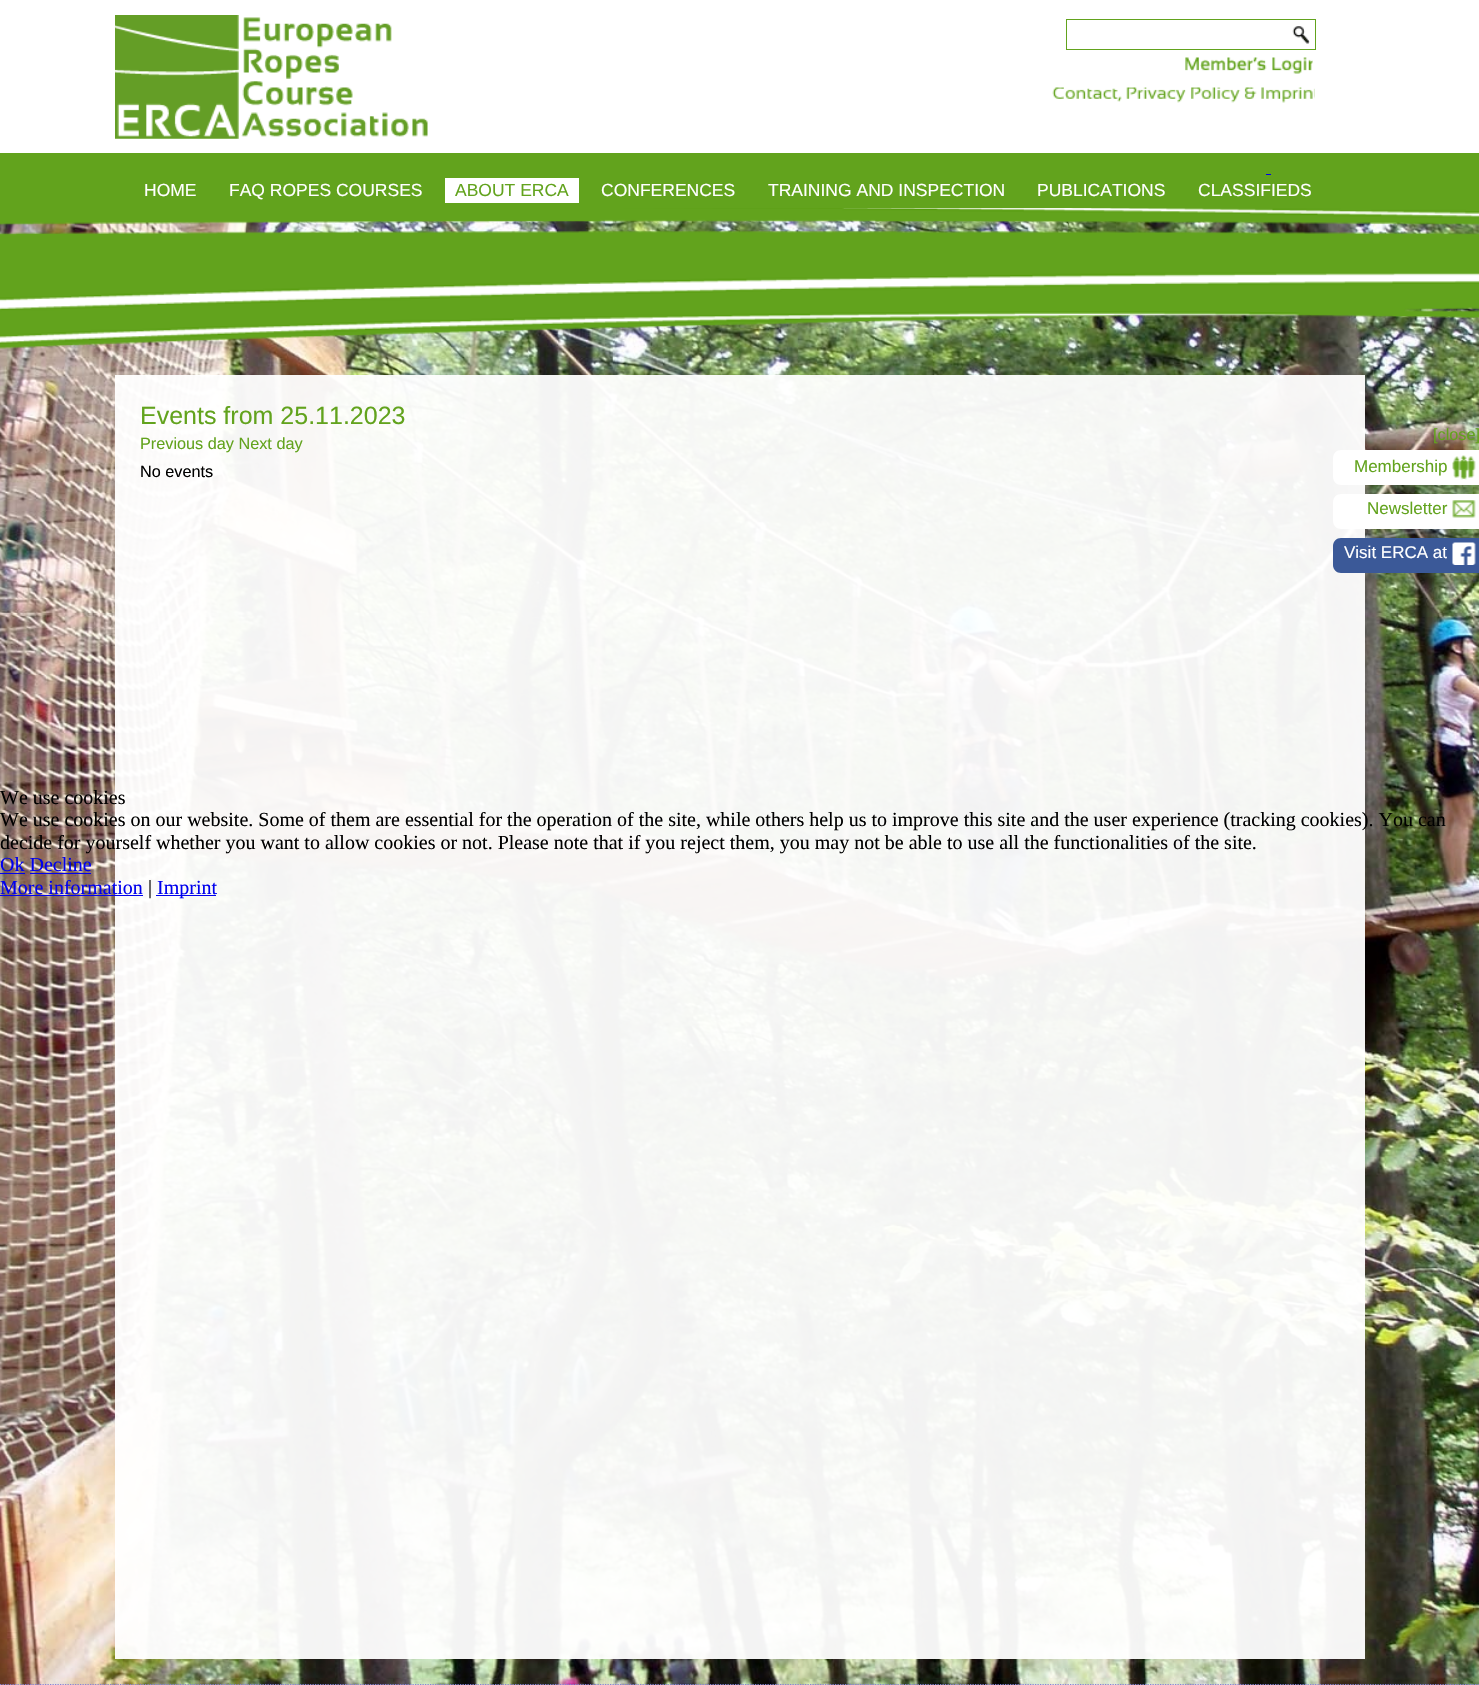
void draw(SkCanvas* canvas) {
	SkPaint fill;
	fill.setAntiAlias(true);
	auto makeFont = [&](const char* family, int weight, float size, bool italic = false) {
		SkFontStyle style(weight, SkFontStyle::kNormal_Width,
			italic ? SkFontStyle::kItalic_Slant : SkFontStyle::kUpright_Slant);
		SkFont result(fontMgr->matchFamilyStyle(family, style), size);
		result.setSubpixel(true);
		return result;
	};
	auto text = [&](const char* s, float x, float y, const SkFont& font) {
		canvas->drawString(s, x, y, font, fill);
	};
	auto box = [&](float l, float t, float r, float b) {
		canvas->drawRect(SkRect::MakeLTRB(l, t, r, b), fill);
	};
	auto picture = [&](const char* path, float l, float t, float r, float b) {
		auto image = SkImages::DeferredFromEncodedData(SkData::MakeFromFileName(path));
		canvas->drawImageRect(image, SkRect::MakeLTRB(l, t, r, b), SkSamplingOptions());
	};
	canvas->clear(0xFFFFFFFF);
	picture("image0.png", 0, 219, 1479, 1685);
	picture("image1.png", 0, 0, 1479, 349);
	picture("image2.png", 115, 15, 428, 139);
	fill.setStyle(SkPaint::kStroke_Style);
	fill.setStrokeWidth(1);
	fill.setColor(0xFF62A31D);
	canvas->drawRect(SkRect::MakeLTRB(1066.5f, 19.5f, 1315.5f, 49.5f), fill);
	picture("image3.png", 1292, 26, 1310, 44);
	picture("image4.png", 1185, 57, 1313, 74);
	picture("image5.png", 1052, 87, 1315, 103);
	fill.setStyle(SkPaint::kFill_Style);
	box(0, 153, 1479, 208);
	fill.setColor(0xFF0000EE);
	box(1266, 174, 1271, 175);
	fill.setColor(0xFFFFFFFF);
	box(445, 178, 579, 203);
	fill.setColor(0xF2FFFFFF);
	box(115, 375, 1365, 1659);
	fill.setColor(0xFFFFFFFF);
	canvas->drawPath(SkPathBuilder().moveTo(1341, 450).lineTo(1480, 450).lineTo(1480, 485).lineTo(1341, 485).cubicTo(1336.5f, 485, 1333, 481.5f, 1333, 477).lineTo(1333, 458).cubicTo(1333, 453.5f, 1336.5f, 450, 1341, 450).close().detach(), fill);
	picture("image6.png", 1452, 455, 1476, 480);
	canvas->drawPath(SkPathBuilder().moveTo(1341, 494).lineTo(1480, 494).lineTo(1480, 529).lineTo(1341, 529).cubicTo(1336.5f, 529, 1333, 525.5f, 1333, 521).lineTo(1333, 502).cubicTo(1333, 497.5f, 1336.5f, 494, 1341, 494).close().detach(), fill);
	picture("image7.png", 1452, 500, 1476, 518);
	fill.setColor(0xFF3B5998);
	canvas->drawPath(SkPathBuilder().moveTo(1341, 538).lineTo(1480, 538).lineTo(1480, 573).lineTo(1341, 573).cubicTo(1336.5f, 573, 1333, 569.5f, 1333, 565).lineTo(1333, 546).cubicTo(1333, 541.5f, 1336.5f, 538, 1341, 538).close().detach(), fill);
	picture("image8.png", 1452, 542, 1476, 565);
	fill.setStyle(SkPaint::kStroke_Style);
	fill.setStrokeWidth(1.2f);
	fill.setColor(0xFF8581DA);
	fill.setPathEffect(SkDashPathEffect::Make({{1.25f, 1.25f}}, 0));
	canvas->drawPath(SkPathBuilder().moveTo(0, 1684.5f).lineTo(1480, 1684.5f).detach(), fill);
	fill.setPathEffect(nullptr);
	fill.setStyle(SkPaint::kFill_Style);
	fill.setColor(0xFF0000EE);
	box(0, 873, 25, 874);
	box(30, 873, 91, 874);
	box(0, 895, 143, 896);
	box(156, 895, 216, 896);
	auto font1 = makeFont("Liberation Sans", 400, 17.5f);
	fill.setColor(0xFFFFFFFF);
	text("HOME", 144, 196, font1);
	text("FAQ ROPES COURSES", 229, 196, font1);
	fill.setColor(0xFF62A31D);
	text("ABOUT ERCA", 455, 196, font1);
	fill.setColor(0xFFFFFFFF);
	text("CONFERENCES", 601, 196, font1);
	text("TRAINING AND INSPECTION", 768, 196, font1);
	text("PUBLICATIONS", 1037, 196, font1);
	text("CLASSIFIEDS", 1198, 196, font1);
	auto font2 = makeFont("Liberation Sans", 400, 16.25f);
	fill.setColor(0xFF62A31D);
	text("[close]", 1433, 440, font2);
	auto font3 = makeFont("Liberation Sans", 400, 17);
	text("Membership", 1354, 472, font3);
	text("Newsletter", 1367, 514, font3);
	fill.setColor(0xFFFFFFFF);
	text("Visit ERCA at", 1344, 558, font3);
	auto font4 = makeFont("Liberation Sans", 400, 25);
	fill.setColor(0xFF62A31D);
	text("Events from 25.11.2023", 140, 424, font4);
	text("Previous day Next day", 140, 449, font2);
	fill.setColor(0xFF000000);
	text("No events", 140, 477, font2);
	auto font5 = makeFont("Liberation Serif", 400, 20);
	text("We use cookies", 0, 804, font5);
	text("We use cookies on our website. Some of them are essential for the operation of the site, while others help us to improve this site and the user experience (tracking cookies). You can", 0, 826, font5);
	text("decide for yourself whether you want to allow cookies or not. Please note that if you reject them, you may not be able to use all the functionalities of the site.", 0, 849, font5);
	fill.setColor(0xFF0000EE);
	text("Ok Decline", 0, 871, font5);
	text("More information", 0, 894, font5);
	fill.setColor(0xFF000000);
	text("|", 148, 894, font5);
	fill.setColor(0xFF0000EE);
	text("Imprint", 157, 894, font5);
}
